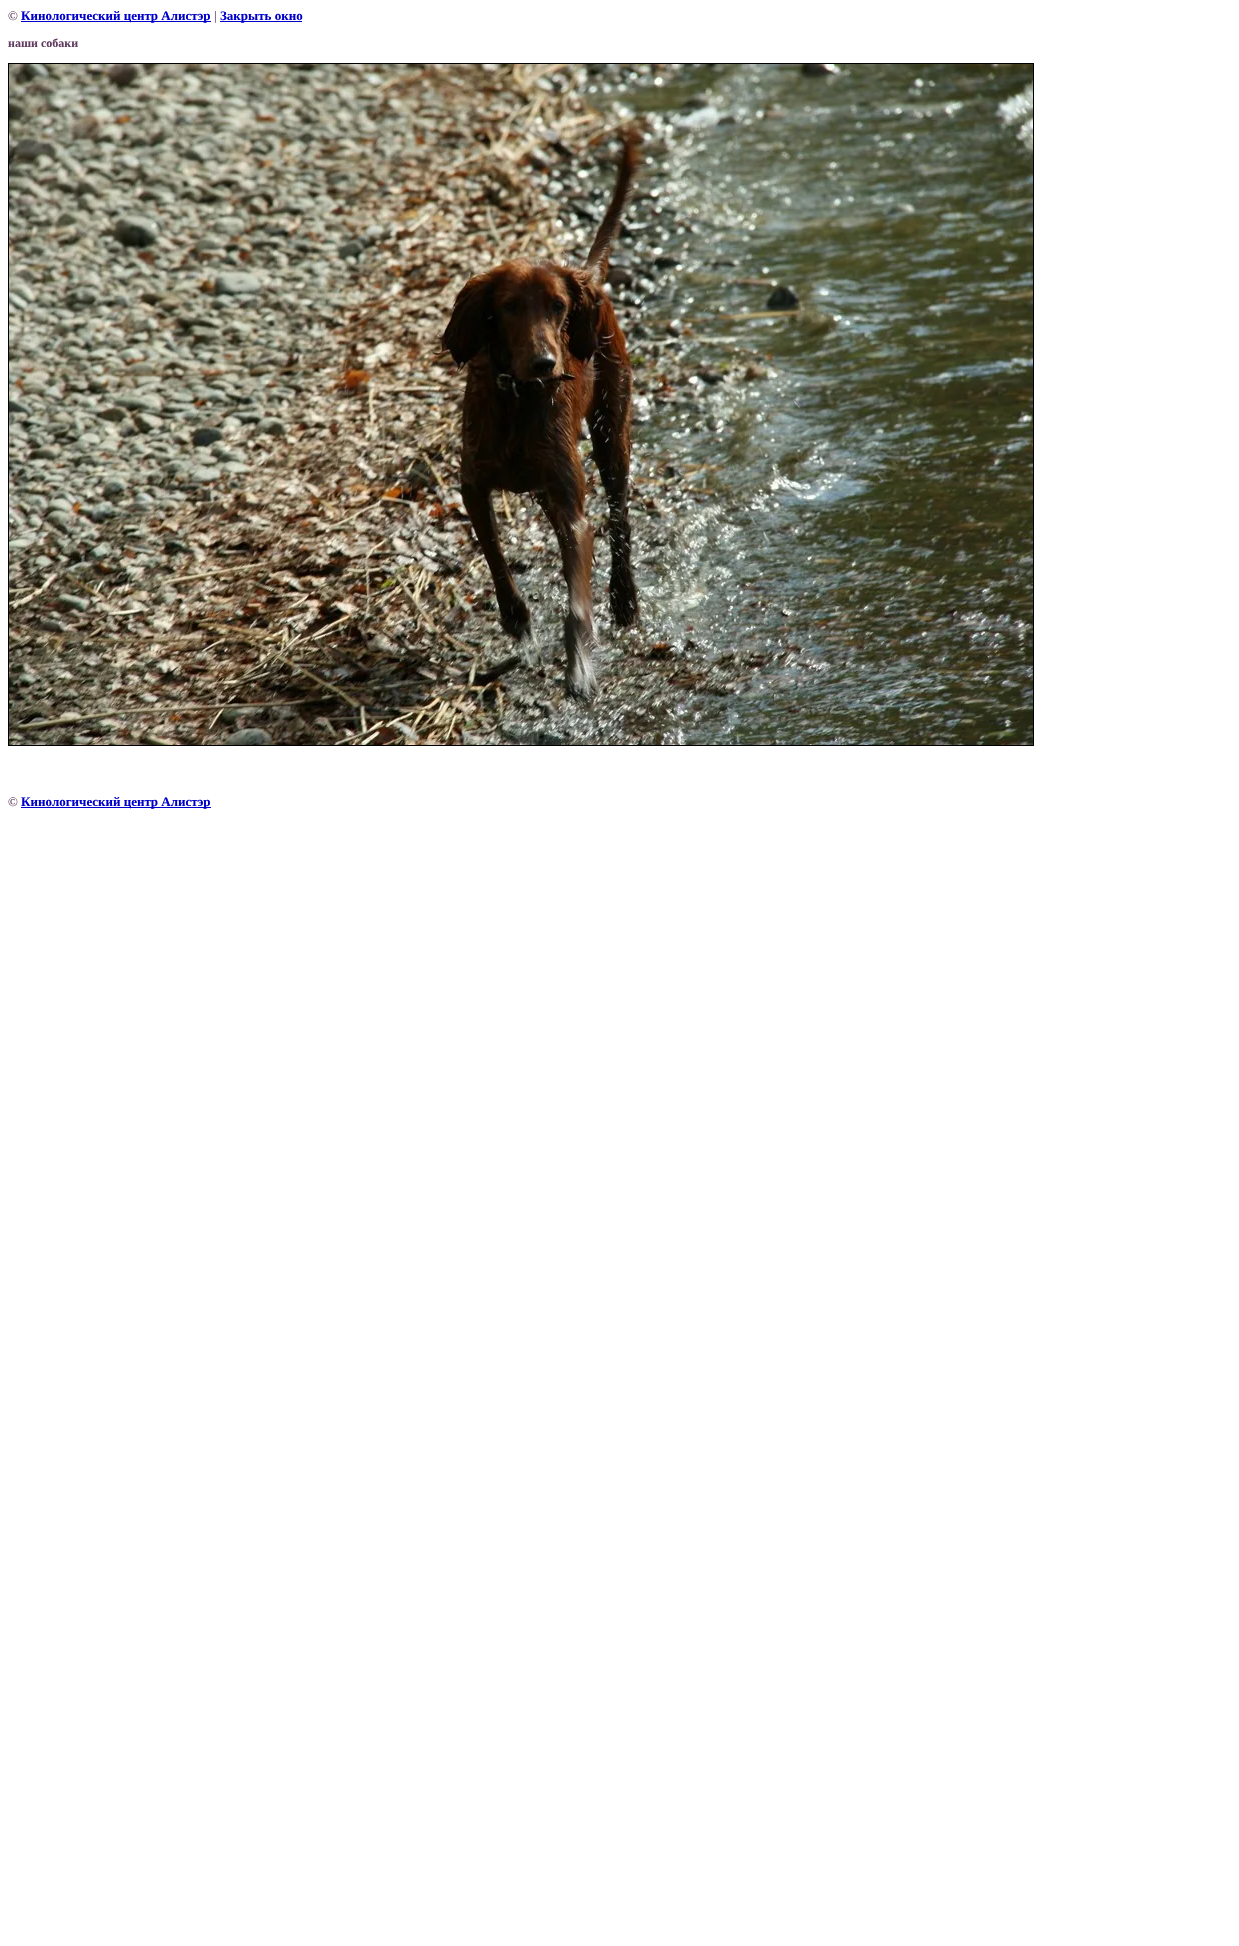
void draw(SkCanvas* canvas) {
	SkPaint fill;
	fill.setAntiAlias(true);
	auto makeFont = [&](const char* family, int weight, float size, bool italic = false) {
		SkFontStyle style(weight, SkFontStyle::kNormal_Width,
			italic ? SkFontStyle::kItalic_Slant : SkFontStyle::kUpright_Slant);
		SkFont result(fontMgr->matchFamilyStyle(family, style), size);
		result.setSubpixel(true);
		return result;
	};
	auto text = [&](const char* s, float x, float y, const SkFont& font) {
		canvas->drawString(s, x, y, font, fill);
	};
	auto box = [&](float l, float t, float r, float b) {
		canvas->drawRect(SkRect::MakeLTRB(l, t, r, b), fill);
	};
	auto picture = [&](const char* path, float l, float t, float r, float b) {
		auto image = SkImages::DeferredFromEncodedData(SkData::MakeFromFileName(path));
		canvas->drawImageRect(image, SkRect::MakeLTRB(l, t, r, b), SkSamplingOptions());
	};
	canvas->clear(0xFFFFFFFF);
	fill.setColor(0xFF0000CC);
	box(21, 21, 211, 22);
	box(220, 21, 302, 22);
	fill.setStyle(SkPaint::kStroke_Style);
	fill.setStrokeWidth(1);
	fill.setColor(0xFF000000);
	canvas->drawRect(SkRect::MakeLTRB(8.5f, 63.5f, 1033.5f, 745.5f), fill);
	picture("image0.png", 9, 64, 1033, 745);
	fill.setStyle(SkPaint::kFill_Style);
	fill.setColor(0xFF0000CC);
	box(21, 807, 211, 808);
	auto font1 = makeFont("Liberation Serif", 400, 13);
	fill.setColor(0xFF613C60);
	text("©", 8, 20, font1);
	auto font2 = makeFont("Liberation Serif", 700, 13);
	fill.setColor(0xFF0000CC);
	text("Кинологический центр Алистэр", 21, 20, font2);
	fill.setColor(0xFF613C60);
	text("|", 214, 20, font1);
	fill.setColor(0xFF0000CC);
	text("Закрыть окно", 220, 20, font2);
	auto font3 = makeFont("Liberation Serif", 700, 12);
	fill.setColor(0xFF613C60);
	text("наши собаки", 8, 47, font3);
	text("©", 8, 806, font1);
	fill.setColor(0xFF0000CC);
	text("Кинологический центр Алистэр", 21, 806, font2);
}
